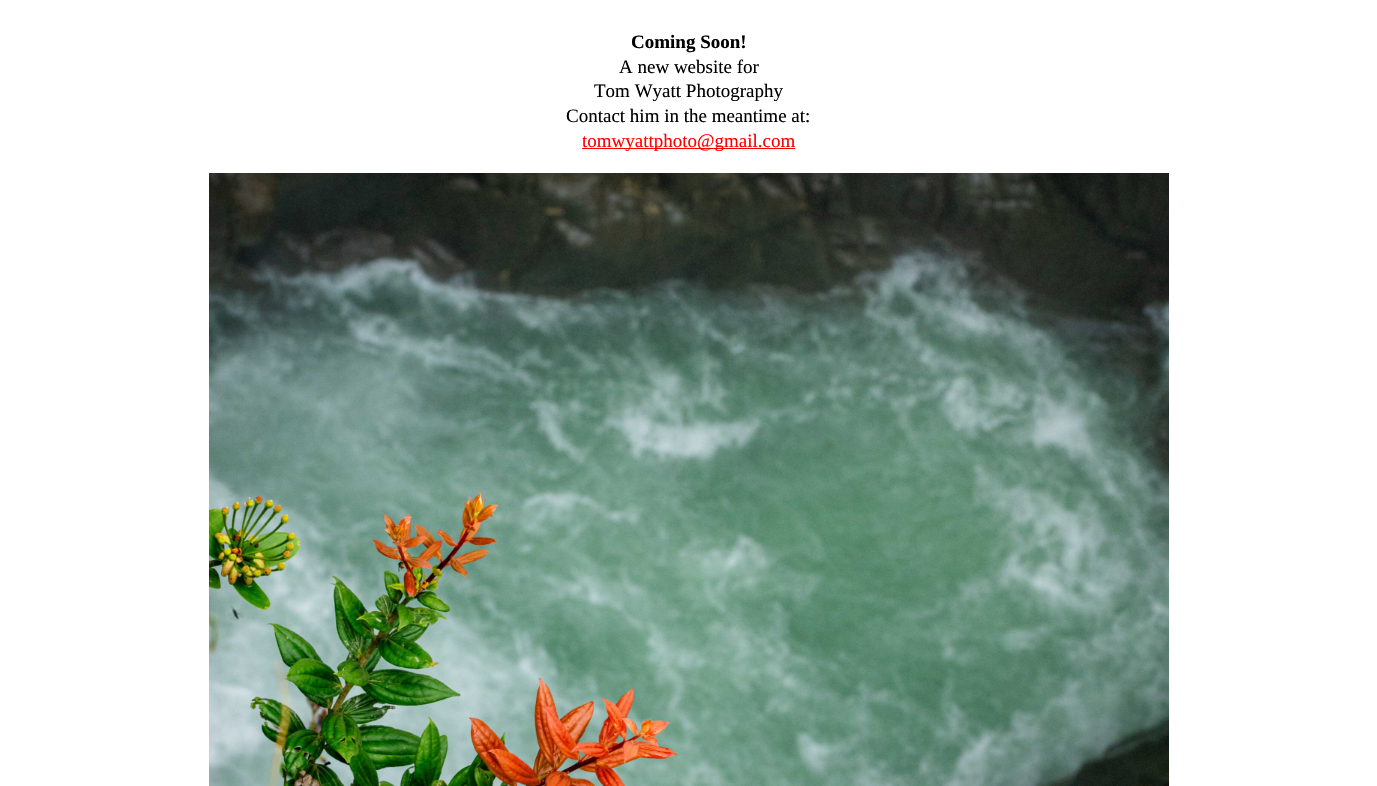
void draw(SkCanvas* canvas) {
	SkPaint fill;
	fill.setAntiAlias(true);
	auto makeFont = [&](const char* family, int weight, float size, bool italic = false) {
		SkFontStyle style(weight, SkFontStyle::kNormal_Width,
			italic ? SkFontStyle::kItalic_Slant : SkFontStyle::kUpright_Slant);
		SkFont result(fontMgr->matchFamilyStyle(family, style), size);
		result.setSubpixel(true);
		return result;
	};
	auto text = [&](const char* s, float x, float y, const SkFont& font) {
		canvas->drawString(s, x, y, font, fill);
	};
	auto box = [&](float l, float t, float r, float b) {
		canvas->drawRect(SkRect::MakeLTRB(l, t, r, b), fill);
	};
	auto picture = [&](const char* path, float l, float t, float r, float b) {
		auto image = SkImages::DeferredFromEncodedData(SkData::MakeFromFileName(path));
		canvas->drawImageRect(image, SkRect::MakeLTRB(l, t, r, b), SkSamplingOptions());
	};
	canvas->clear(0xFFFFFFFF);
	fill.setColor(0xFFFF0000);
	box(582, 148, 795, 149);
	picture("image0.png", 209, 173, 1169, 786);
	auto font1 = makeFont("Liberation Serif", 700, 19);
	fill.setColor(0xFF000000);
	text("Coming Soon!", 631, 48, font1);
	auto font2 = makeFont("Liberation Serif", 400, 19);
	text("A new website for", 619, 73, font2);
	text("Tom Wyatt Photography", 594, 97, font2);
	text("Contact him in the meantime at:", 566, 122, font2);
	fill.setColor(0xFFFF0000);
	text("tomwyattphoto@gmail.com", 582, 147, font2);
}
